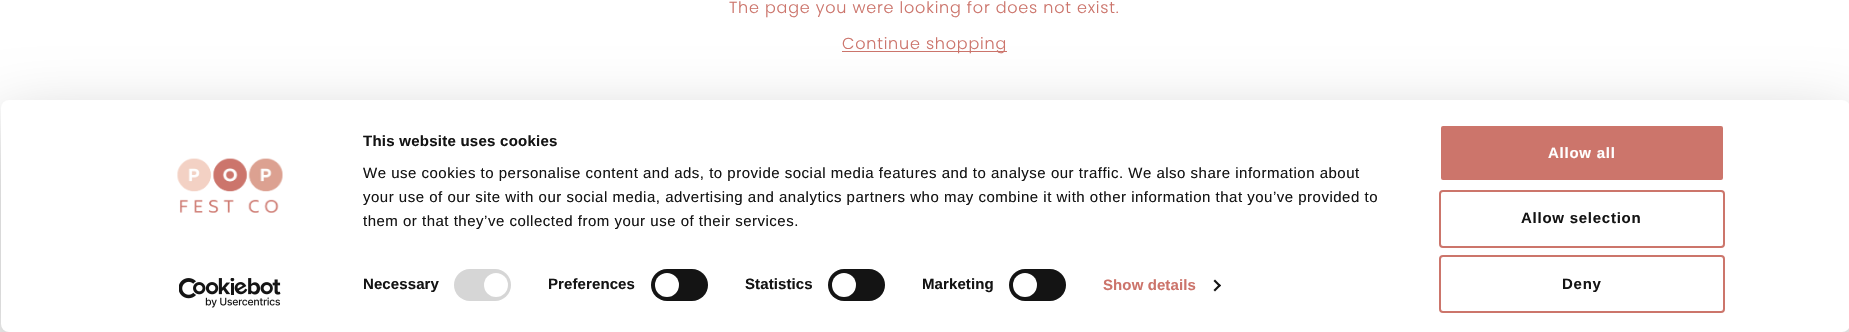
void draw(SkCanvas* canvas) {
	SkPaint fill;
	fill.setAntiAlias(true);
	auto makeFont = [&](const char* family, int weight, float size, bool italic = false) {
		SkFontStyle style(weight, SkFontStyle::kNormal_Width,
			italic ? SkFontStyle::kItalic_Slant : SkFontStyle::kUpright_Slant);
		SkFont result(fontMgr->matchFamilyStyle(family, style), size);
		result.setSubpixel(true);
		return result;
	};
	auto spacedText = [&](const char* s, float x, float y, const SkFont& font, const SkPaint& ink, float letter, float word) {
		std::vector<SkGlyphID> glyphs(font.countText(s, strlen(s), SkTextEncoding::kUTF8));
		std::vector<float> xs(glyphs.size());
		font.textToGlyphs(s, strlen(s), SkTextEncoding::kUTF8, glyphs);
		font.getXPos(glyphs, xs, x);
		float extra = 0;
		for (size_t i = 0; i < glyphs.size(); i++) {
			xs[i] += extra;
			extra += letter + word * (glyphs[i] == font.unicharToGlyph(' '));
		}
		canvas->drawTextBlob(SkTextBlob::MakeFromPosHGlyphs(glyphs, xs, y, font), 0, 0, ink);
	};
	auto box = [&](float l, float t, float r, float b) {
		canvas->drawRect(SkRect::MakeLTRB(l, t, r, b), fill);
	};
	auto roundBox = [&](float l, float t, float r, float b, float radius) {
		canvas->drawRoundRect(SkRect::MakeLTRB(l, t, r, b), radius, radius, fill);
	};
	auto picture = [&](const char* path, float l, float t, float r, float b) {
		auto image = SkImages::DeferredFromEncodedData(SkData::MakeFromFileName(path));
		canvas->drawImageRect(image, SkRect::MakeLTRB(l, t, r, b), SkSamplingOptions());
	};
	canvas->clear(0xFFFFFFFF);
	fill.setColor(0xFFCC746B);
	box(842, 51, 1007, 52);
	fill.setColor(0x4D000000);
	fill.setMaskFilter(SkMaskFilter::MakeBlur(kNormal_SkBlurStyle, 35));
	canvas->drawRoundRect(SkRect::MakeLTRB(1, 130, 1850, 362), 8, 8, fill);
	fill.setMaskFilter(nullptr);
	fill.setColor(0xFFFFFFFF);
	roundBox(1, 100, 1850, 332, 8);
	picture("image0.png", 177, 158, 283, 213);
	picture("image1.png", 179, 278, 281, 308);
	fill.setColor(0xFFD6D6D6);
	roundBox(454, 269, 511, 301, 16);
	fill.setColor(0xFFFFFFFF);
	canvas->drawCircle(496, 285, 12, fill);
	fill.setColor(0xFF141414);
	roundBox(651, 269, 708, 301, 16);
	fill.setColor(0xFFFFFFFF);
	canvas->drawCircle(667, 285, 12, fill);
	fill.setColor(0xFF141414);
	roundBox(828, 269, 885, 301, 16);
	fill.setColor(0xFFFFFFFF);
	canvas->drawCircle(844, 285, 12, fill);
	fill.setColor(0xFF141414);
	roundBox(1009, 269, 1066, 301, 16);
	fill.setColor(0xFFFFFFFF);
	canvas->drawCircle(1025, 285, 12, fill);
	fill.setColor(0xFF141414);
	canvas->drawPath(SkPathBuilder().moveTo(1215, 279.5f).lineTo(1221, 285.5f).lineTo(1219.5f, 287).lineTo(1213.5f, 281).close().detach(), fill);
	canvas->drawPath(SkPathBuilder().moveTo(1219.5f, 284).lineTo(1221, 285.5f).lineTo(1215, 291.5f).lineTo(1213.5f, 290).close().detach(), fill);
	fill.setColor(0xFFCC756B);
	canvas->drawRoundRect(SkRect::MakeLTRB(1440, 125, 1724, 181), 3, 3, fill);
	fill.setStyle(SkPaint::kStroke_Style);
	fill.setStrokeWidth(2);
	fill.setColor(0xFFFFFFFF);
	canvas->drawRoundRect(SkRect::MakeLTRB(1440, 125, 1724, 181), 3, 3, fill);
	fill.setColor(0xFFCC756B);
	canvas->drawRoundRect(SkRect::MakeLTRB(1440, 191, 1724, 247), 3, 3, fill);
	canvas->drawRoundRect(SkRect::MakeLTRB(1440, 256, 1724, 312), 3, 3, fill);
	auto font1 = makeFont("Poppins", 300, 16);
	fill.setStyle(SkPaint::kFill_Style);
	fill.setColor(0xFFCC746B);
	spacedText("The page you were looking for does not exist.", 729, 13, font1, fill, 0.8f, 0);
	spacedText("Continue shopping", 842, 49, font1, fill, 0.8f, 0);
	canvas->save();
	canvas->clipRect(SkRect::MakeLTRB(363, 130, 1411, 233));
	auto font2 = makeFont("Liberation Sans", 700, 15);
	fill.setColor(0xFF141414);
	spacedText("This website uses cookies", 363, 146, font2, fill, 0.25f, 0);
	canvas->restore();
	auto font3 = makeFont("Liberation Sans", 400, 15);
	spacedText("We use cookies to personalise content and ads, to provide social media features and to analyse our traffic. We also share information about", 363, 178, font3, fill, 0.5f, 0);
	spacedText("your use of our site with our social media, advertising and analytics partners who may combine it with other information that you’ve provided to", 363, 202, font3, fill, 0.5f, 0);
	spacedText("them or that they’ve collected from your use of their services.", 363, 226, font3, fill, 0.5f, 0);
	spacedText("Necessary", 363, 289, font2, fill, 0.1f, 0);
	spacedText("Preferences", 548, 289, font2, fill, 0.1f, 0);
	spacedText("Statistics", 745, 289, font2, fill, 0.1f, 0);
	spacedText("Marketing", 922, 289, font2, fill, 0.1f, 0);
	fill.setColor(0xFFCC746B);
	spacedText("Show details", 1103, 290, font2, fill, 0.1f, 0);
	fill.setColor(0xFFFFFFFF);
	spacedText("Allow all", 1548, 158, font2, fill, 0.75f, 0);
	fill.setColor(0xFF141414);
	spacedText("Allow selection", 1521, 223, font2, fill, 0.75f, 0);
	spacedText("Deny", 1562, 289, font2, fill, 0.75f, 0);
}
